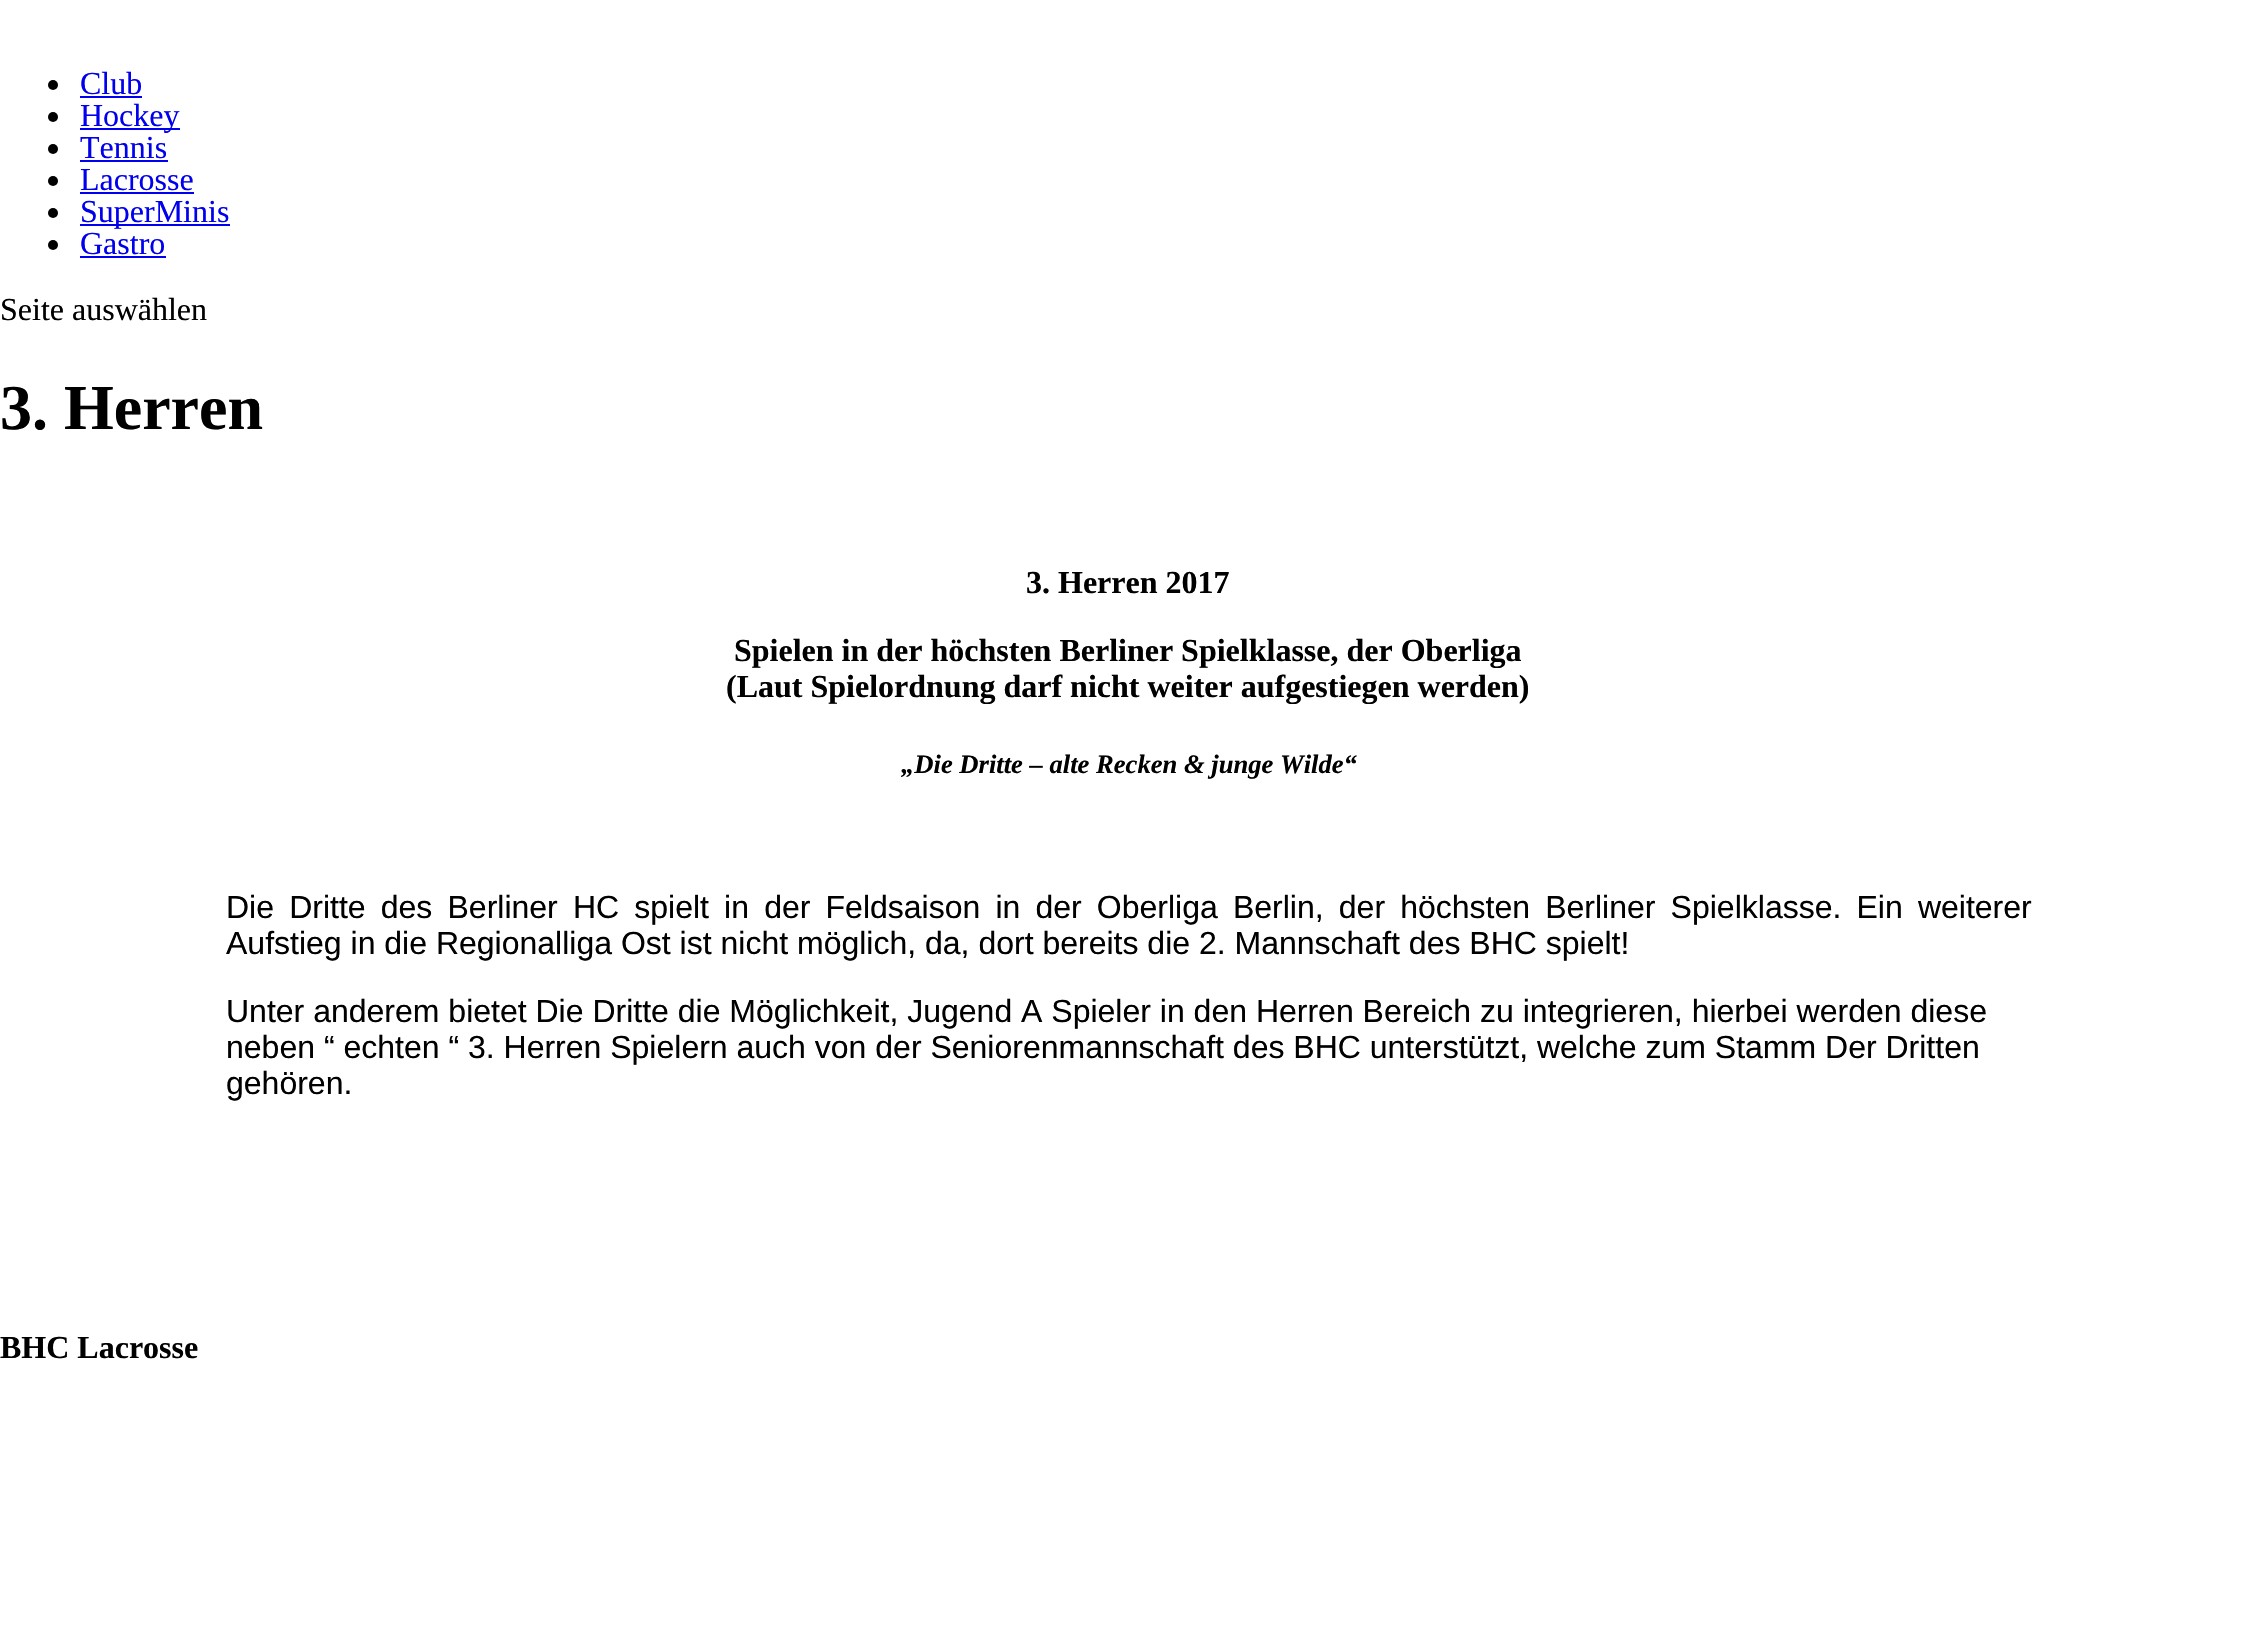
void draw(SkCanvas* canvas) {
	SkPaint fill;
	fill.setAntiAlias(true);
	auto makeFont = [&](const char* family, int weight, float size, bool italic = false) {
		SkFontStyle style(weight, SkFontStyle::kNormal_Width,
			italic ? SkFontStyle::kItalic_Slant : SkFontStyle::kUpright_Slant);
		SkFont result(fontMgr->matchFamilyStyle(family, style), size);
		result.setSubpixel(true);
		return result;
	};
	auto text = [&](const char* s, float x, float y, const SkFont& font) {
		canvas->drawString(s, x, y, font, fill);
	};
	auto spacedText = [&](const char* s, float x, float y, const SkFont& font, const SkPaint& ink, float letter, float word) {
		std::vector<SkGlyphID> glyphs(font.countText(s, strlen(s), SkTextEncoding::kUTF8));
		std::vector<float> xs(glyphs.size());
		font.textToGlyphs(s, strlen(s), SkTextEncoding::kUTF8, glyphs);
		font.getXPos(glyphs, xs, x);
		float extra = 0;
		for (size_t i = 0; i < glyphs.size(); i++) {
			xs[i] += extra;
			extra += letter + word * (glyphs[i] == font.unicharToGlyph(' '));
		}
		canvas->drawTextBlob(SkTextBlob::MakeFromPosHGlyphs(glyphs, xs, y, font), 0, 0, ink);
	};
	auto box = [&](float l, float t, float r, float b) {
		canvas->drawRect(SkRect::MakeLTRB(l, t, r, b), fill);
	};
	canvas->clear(0xFFFFFFFF);
	fill.setColor(0xFF000000);
	canvas->drawCircle(53, 85, 5, fill);
	fill.setColor(0xFF0000EE);
	box(80, 96, 142, 98);
	fill.setColor(0xFF000000);
	canvas->drawCircle(53, 117, 5, fill);
	fill.setColor(0xFF0000EE);
	box(80, 128, 180, 130);
	fill.setColor(0xFF000000);
	canvas->drawCircle(53, 149, 5, fill);
	fill.setColor(0xFF0000EE);
	box(80, 160, 168, 162);
	fill.setColor(0xFF000000);
	canvas->drawCircle(53, 181, 5, fill);
	fill.setColor(0xFF0000EE);
	box(80, 192, 194, 194);
	fill.setColor(0xFF000000);
	canvas->drawCircle(53, 213, 5, fill);
	fill.setColor(0xFF0000EE);
	box(80, 224, 230, 226);
	fill.setColor(0xFF000000);
	canvas->drawCircle(53, 245, 5, fill);
	fill.setColor(0xFF0000EE);
	box(80, 256, 166, 258);
	auto font1 = makeFont("Liberation Serif", 400, 32);
	text("Club", 80, 94, font1);
	text("Hockey", 80, 126, font1);
	text("Tennis", 80, 158, font1);
	text("Lacrosse", 80, 190, font1);
	text("SuperMinis", 80, 222, font1);
	text("Gastro", 80, 254, font1);
	fill.setColor(0xFF000000);
	text("Seite auswählen", 0, 320, font1);
	auto font2 = makeFont("Liberation Serif", 700, 64);
	text("3. Herren", 0, 429, font2);
	auto font3 = makeFont("Liberation Serif", 700, 32);
	text("3. Herren 2017", 1026, 593, font3);
	text("Spielen in der höchsten Berliner Spielklasse, der Oberliga", 734, 661, font3);
	text("(Laut Spielordnung darf nicht weiter aufgestiegen werden)", 726, 697, font3);
	auto font4 = makeFont("Liberation Serif", 700, 26.6f, true);
	text("„Die Dritte – alte Recken & junge Wilde“", 901, 773, font4);
	auto font5 = makeFont("Liberation Sans", 400, 32);
	spacedText("Die Dritte des Berliner HC spielt in der Feldsaison in der Oberliga Berlin, der höchsten Berliner Spielklasse. Ein weiterer", 226, 918, font5, fill, 0, 6.25f);
	text("Aufstieg in die Regionalliga Ost ist nicht möglich, da, dort bereits die 2. Mannschaft des BHC spielt!", 226, 954, font5);
	text("Unter anderem bietet Die Dritte die Möglichkeit, Jugend A Spieler in den Herren Bereich zu integrieren, hierbei werden diese", 226, 1022, font5);
	text("neben “ echten “ 3. Herren Spielern auch von der Seniorenmannschaft des BHC unterstützt, welche zum Stamm Der Dritten", 226, 1058, font5);
	text("gehören.", 226, 1094, font5);
	text("BHC Lacrosse", 0, 1358, font3);
}
